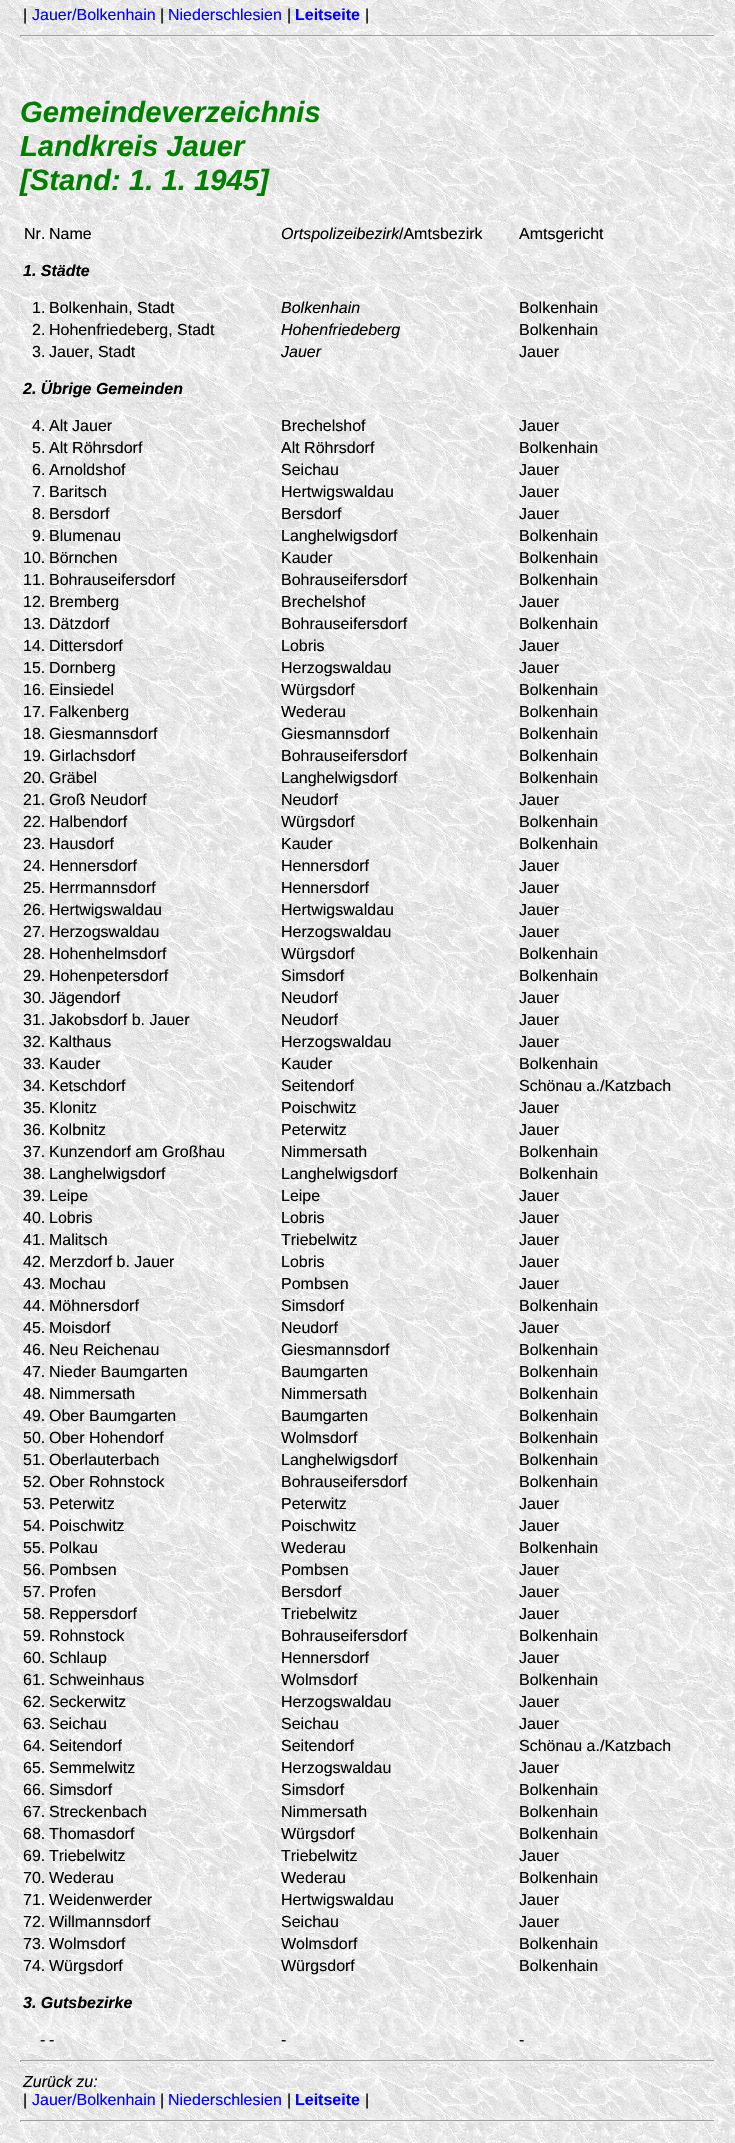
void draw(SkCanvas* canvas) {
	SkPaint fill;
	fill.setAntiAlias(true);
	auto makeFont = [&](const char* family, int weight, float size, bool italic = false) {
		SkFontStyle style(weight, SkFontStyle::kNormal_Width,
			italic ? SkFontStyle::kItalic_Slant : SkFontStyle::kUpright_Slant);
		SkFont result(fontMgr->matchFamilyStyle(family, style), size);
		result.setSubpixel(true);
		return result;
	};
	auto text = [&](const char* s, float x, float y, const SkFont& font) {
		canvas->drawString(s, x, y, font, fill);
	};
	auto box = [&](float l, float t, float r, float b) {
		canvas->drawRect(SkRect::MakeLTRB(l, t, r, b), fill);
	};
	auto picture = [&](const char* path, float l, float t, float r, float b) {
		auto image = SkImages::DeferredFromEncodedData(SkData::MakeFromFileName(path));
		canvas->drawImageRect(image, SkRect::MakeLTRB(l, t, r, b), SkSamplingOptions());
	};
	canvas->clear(0xFFFFFFFF);
	picture("image0.png", 0, 0, 735, 2143);
	fill.setColor(0xFF9F9F9F);
	box(20, 35, 715, 36);
	fill.setColor(0xFFEEEEEE);
	box(714, 35, 715, 37);
	box(20, 36, 715, 37);
	fill.setColor(0xFF9F9F9F);
	box(20, 35, 21, 37);
	box(20, 2060, 715, 2061);
	fill.setColor(0xFFEEEEEE);
	box(714, 2060, 715, 2062);
	box(20, 2061, 715, 2062);
	fill.setColor(0xFF9F9F9F);
	box(20, 2060, 21, 2062);
	box(20, 2120, 715, 2121);
	fill.setColor(0xFFEEEEEE);
	box(714, 2120, 715, 2122);
	box(20, 2121, 715, 2122);
	fill.setColor(0xFF9F9F9F);
	box(20, 2120, 21, 2122);
	auto font1 = makeFont("Liberation Sans", 400, 16);
	fill.setColor(0xFF000000);
	text("|", 23, 20, font1);
	fill.setColor(0xFF0000FF);
	text("Jauer/Bolkenhain", 32, 20, font1);
	fill.setColor(0xFF000000);
	text("|", 160, 20, font1);
	fill.setColor(0xFF0000FF);
	text("Niederschlesien", 168, 20, font1);
	fill.setColor(0xFF000000);
	text("|", 287, 20, font1);
	auto font2 = makeFont("Liberation Sans", 700, 16);
	fill.setColor(0xFF0000FF);
	text("Leitseite", 295, 20, font2);
	fill.setColor(0xFF000000);
	text("|", 365, 20, font1);
	auto font3 = makeFont("Liberation Sans", 700, 29.25f, true);
	fill.setColor(0xFF008000);
	text("Gemeindeverzeichnis", 20, 122, font3);
	text("Landkreis Jauer", 20, 156, font3);
	text("[Stand: 1. 1. 1945]", 20, 190, font3);
	fill.setColor(0xFF000000);
	text("Nr.", 24, 239, font1);
	text("Name", 49, 239, font1);
	auto font4 = makeFont("Liberation Sans", 400, 16, true);
	text("Ortspolizeibezirk", 281, 239, font4);
	text("/Amtsbezirk", 399, 239, font1);
	text("Amtsgericht", 519, 239, font1);
	auto font5 = makeFont("Liberation Sans", 700, 16, true);
	text("1. Städte", 23, 276, font5);
	text("1.", 32, 313, font1);
	text("Bolkenhain, Stadt", 49, 313, font1);
	text("Bolkenhain", 281, 313, font4);
	text("Bolkenhain", 519, 313, font1);
	text("2.", 32, 335, font1);
	text("Hohenfriedeberg, Stadt", 49, 335, font1);
	text("Hohenfriedeberg", 281, 335, font4);
	text("Bolkenhain", 519, 335, font1);
	text("3.", 32, 357, font1);
	text("Jauer, Stadt", 49, 357, font1);
	text("Jauer", 281, 357, font4);
	text("Jauer", 519, 357, font1);
	text("2. Übrige Gemeinden", 23, 394, font5);
	text("4.", 32, 431, font1);
	text("Alt Jauer", 49, 431, font1);
	text("Brechelshof", 281, 431, font1);
	text("Jauer", 519, 431, font1);
	text("5.", 32, 453, font1);
	text("Alt Röhrsdorf", 49, 453, font1);
	text("Alt Röhrsdorf", 281, 453, font1);
	text("Bolkenhain", 519, 453, font1);
	text("6.", 32, 475, font1);
	text("Arnoldshof", 49, 475, font1);
	text("Seichau", 281, 475, font1);
	text("Jauer", 519, 475, font1);
	text("7.", 32, 497, font1);
	text("Baritsch", 49, 497, font1);
	text("Hertwigswaldau", 281, 497, font1);
	text("Jauer", 519, 497, font1);
	text("8.", 32, 519, font1);
	text("Bersdorf", 49, 519, font1);
	text("Bersdorf", 281, 519, font1);
	text("Jauer", 519, 519, font1);
	text("9.", 32, 541, font1);
	text("Blumenau", 49, 541, font1);
	text("Langhelwigsdorf", 281, 541, font1);
	text("Bolkenhain", 519, 541, font1);
	text("10.", 23, 563, font1);
	text("Börnchen", 49, 563, font1);
	text("Kauder", 281, 563, font1);
	text("Bolkenhain", 519, 563, font1);
	text("11.", 23, 585, font1);
	text("Bohrauseifersdorf", 49, 585, font1);
	text("Bohrauseifersdorf", 281, 585, font1);
	text("Bolkenhain", 519, 585, font1);
	text("12.", 23, 607, font1);
	text("Bremberg", 49, 607, font1);
	text("Brechelshof", 281, 607, font1);
	text("Jauer", 519, 607, font1);
	text("13.", 23, 629, font1);
	text("Dätzdorf", 49, 629, font1);
	text("Bohrauseifersdorf", 281, 629, font1);
	text("Bolkenhain", 519, 629, font1);
	text("14.", 23, 651, font1);
	text("Dittersdorf", 49, 651, font1);
	text("Lobris", 281, 651, font1);
	text("Jauer", 519, 651, font1);
	text("15.", 23, 673, font1);
	text("Dornberg", 49, 673, font1);
	text("Herzogswaldau", 281, 673, font1);
	text("Jauer", 519, 673, font1);
	text("16.", 23, 695, font1);
	text("Einsiedel", 49, 695, font1);
	text("Würgsdorf", 281, 695, font1);
	text("Bolkenhain", 519, 695, font1);
	text("17.", 23, 717, font1);
	text("Falkenberg", 49, 717, font1);
	text("Wederau", 281, 717, font1);
	text("Bolkenhain", 519, 717, font1);
	text("18.", 23, 739, font1);
	text("Giesmannsdorf", 49, 739, font1);
	text("Giesmannsdorf", 281, 739, font1);
	text("Bolkenhain", 519, 739, font1);
	text("19.", 23, 761, font1);
	text("Girlachsdorf", 49, 761, font1);
	text("Bohrauseifersdorf", 281, 761, font1);
	text("Bolkenhain", 519, 761, font1);
	text("20.", 23, 783, font1);
	text("Gräbel", 49, 783, font1);
	text("Langhelwigsdorf", 281, 783, font1);
	text("Bolkenhain", 519, 783, font1);
	text("21.", 23, 805, font1);
	text("Groß Neudorf", 49, 805, font1);
	text("Neudorf", 281, 805, font1);
	text("Jauer", 519, 805, font1);
	text("22.", 23, 827, font1);
	text("Halbendorf", 49, 827, font1);
	text("Würgsdorf", 281, 827, font1);
	text("Bolkenhain", 519, 827, font1);
	text("23.", 23, 849, font1);
	text("Hausdorf", 49, 849, font1);
	text("Kauder", 281, 849, font1);
	text("Bolkenhain", 519, 849, font1);
	text("24.", 23, 871, font1);
	text("Hennersdorf", 49, 871, font1);
	text("Hennersdorf", 281, 871, font1);
	text("Jauer", 519, 871, font1);
	text("25.", 23, 893, font1);
	text("Herrmannsdorf", 49, 893, font1);
	text("Hennersdorf", 281, 893, font1);
	text("Jauer", 519, 893, font1);
	text("26.", 23, 915, font1);
	text("Hertwigswaldau", 49, 915, font1);
	text("Hertwigswaldau", 281, 915, font1);
	text("Jauer", 519, 915, font1);
	text("27.", 23, 937, font1);
	text("Herzogswaldau", 49, 937, font1);
	text("Herzogswaldau", 281, 937, font1);
	text("Jauer", 519, 937, font1);
	text("28.", 23, 959, font1);
	text("Hohenhelmsdorf", 49, 959, font1);
	text("Würgsdorf", 281, 959, font1);
	text("Bolkenhain", 519, 959, font1);
	text("29.", 23, 981, font1);
	text("Hohenpetersdorf", 49, 981, font1);
	text("Simsdorf", 281, 981, font1);
	text("Bolkenhain", 519, 981, font1);
	text("30.", 23, 1003, font1);
	text("Jägendorf", 49, 1003, font1);
	text("Neudorf", 281, 1003, font1);
	text("Jauer", 519, 1003, font1);
	text("31.", 23, 1025, font1);
	text("Jakobsdorf b. Jauer", 49, 1025, font1);
	text("Neudorf", 281, 1025, font1);
	text("Jauer", 519, 1025, font1);
	text("32.", 23, 1047, font1);
	text("Kalthaus", 49, 1047, font1);
	text("Herzogswaldau", 281, 1047, font1);
	text("Jauer", 519, 1047, font1);
	text("33.", 23, 1069, font1);
	text("Kauder", 49, 1069, font1);
	text("Kauder", 281, 1069, font1);
	text("Bolkenhain", 519, 1069, font1);
	text("34.", 23, 1091, font1);
	text("Ketschdorf", 49, 1091, font1);
	text("Seitendorf", 281, 1091, font1);
	text("Schönau a./Katzbach", 519, 1091, font1);
	text("35.", 23, 1113, font1);
	text("Klonitz", 49, 1113, font1);
	text("Poischwitz", 281, 1113, font1);
	text("Jauer", 519, 1113, font1);
	text("36.", 23, 1135, font1);
	text("Kolbnitz", 49, 1135, font1);
	text("Peterwitz", 281, 1135, font1);
	text("Jauer", 519, 1135, font1);
	text("37.", 23, 1157, font1);
	text("Kunzendorf am Großhau", 49, 1157, font1);
	text("Nimmersath", 281, 1157, font1);
	text("Bolkenhain", 519, 1157, font1);
	text("38.", 23, 1179, font1);
	text("Langhelwigsdorf", 49, 1179, font1);
	text("Langhelwigsdorf", 281, 1179, font1);
	text("Bolkenhain", 519, 1179, font1);
	text("39.", 23, 1201, font1);
	text("Leipe", 49, 1201, font1);
	text("Leipe", 281, 1201, font1);
	text("Jauer", 519, 1201, font1);
	text("40.", 23, 1223, font1);
	text("Lobris", 49, 1223, font1);
	text("Lobris", 281, 1223, font1);
	text("Jauer", 519, 1223, font1);
	text("41.", 23, 1245, font1);
	text("Malitsch", 49, 1245, font1);
	text("Triebelwitz", 281, 1245, font1);
	text("Jauer", 519, 1245, font1);
	text("42.", 23, 1267, font1);
	text("Merzdorf b. Jauer", 49, 1267, font1);
	text("Lobris", 281, 1267, font1);
	text("Jauer", 519, 1267, font1);
	text("43.", 23, 1289, font1);
	text("Mochau", 49, 1289, font1);
	text("Pombsen", 281, 1289, font1);
	text("Jauer", 519, 1289, font1);
	text("44.", 23, 1311, font1);
	text("Möhnersdorf", 49, 1311, font1);
	text("Simsdorf", 281, 1311, font1);
	text("Bolkenhain", 519, 1311, font1);
	text("45.", 23, 1333, font1);
	text("Moisdorf", 49, 1333, font1);
	text("Neudorf", 281, 1333, font1);
	text("Jauer", 519, 1333, font1);
	text("46.", 23, 1355, font1);
	text("Neu Reichenau", 49, 1355, font1);
	text("Giesmannsdorf", 281, 1355, font1);
	text("Bolkenhain", 519, 1355, font1);
	text("47.", 23, 1377, font1);
	text("Nieder Baumgarten", 49, 1377, font1);
	text("Baumgarten", 281, 1377, font1);
	text("Bolkenhain", 519, 1377, font1);
	text("48.", 23, 1399, font1);
	text("Nimmersath", 49, 1399, font1);
	text("Nimmersath", 281, 1399, font1);
	text("Bolkenhain", 519, 1399, font1);
	text("49.", 23, 1421, font1);
	text("Ober Baumgarten", 49, 1421, font1);
	text("Baumgarten", 281, 1421, font1);
	text("Bolkenhain", 519, 1421, font1);
	text("50.", 23, 1443, font1);
	text("Ober Hohendorf", 49, 1443, font1);
	text("Wolmsdorf", 281, 1443, font1);
	text("Bolkenhain", 519, 1443, font1);
	text("51.", 23, 1465, font1);
	text("Oberlauterbach", 49, 1465, font1);
	text("Langhelwigsdorf", 281, 1465, font1);
	text("Bolkenhain", 519, 1465, font1);
	text("52.", 23, 1487, font1);
	text("Ober Rohnstock", 49, 1487, font1);
	text("Bohrauseifersdorf", 281, 1487, font1);
	text("Bolkenhain", 519, 1487, font1);
	text("53.", 23, 1509, font1);
	text("Peterwitz", 49, 1509, font1);
	text("Peterwitz", 281, 1509, font1);
	text("Jauer", 519, 1509, font1);
	text("54.", 23, 1531, font1);
	text("Poischwitz", 49, 1531, font1);
	text("Poischwitz", 281, 1531, font1);
	text("Jauer", 519, 1531, font1);
	text("55.", 23, 1553, font1);
	text("Polkau", 49, 1553, font1);
	text("Wederau", 281, 1553, font1);
	text("Bolkenhain", 519, 1553, font1);
	text("56.", 23, 1575, font1);
	text("Pombsen", 49, 1575, font1);
	text("Pombsen", 281, 1575, font1);
	text("Jauer", 519, 1575, font1);
	text("57.", 23, 1597, font1);
	text("Profen", 49, 1597, font1);
	text("Bersdorf", 281, 1597, font1);
	text("Jauer", 519, 1597, font1);
	text("58.", 23, 1619, font1);
	text("Reppersdorf", 49, 1619, font1);
	text("Triebelwitz", 281, 1619, font1);
	text("Jauer", 519, 1619, font1);
	text("59.", 23, 1641, font1);
	text("Rohnstock", 49, 1641, font1);
	text("Bohrauseifersdorf", 281, 1641, font1);
	text("Bolkenhain", 519, 1641, font1);
	text("60.", 23, 1663, font1);
	text("Schlaup", 49, 1663, font1);
	text("Hennersdorf", 281, 1663, font1);
	text("Jauer", 519, 1663, font1);
	text("61.", 23, 1685, font1);
	text("Schweinhaus", 49, 1685, font1);
	text("Wolmsdorf", 281, 1685, font1);
	text("Bolkenhain", 519, 1685, font1);
	text("62.", 23, 1707, font1);
	text("Seckerwitz", 49, 1707, font1);
	text("Herzogswaldau", 281, 1707, font1);
	text("Jauer", 519, 1707, font1);
	text("63.", 23, 1729, font1);
	text("Seichau", 49, 1729, font1);
	text("Seichau", 281, 1729, font1);
	text("Jauer", 519, 1729, font1);
	text("64.", 23, 1751, font1);
	text("Seitendorf", 49, 1751, font1);
	text("Seitendorf", 281, 1751, font1);
	text("Schönau a./Katzbach", 519, 1751, font1);
	text("65.", 23, 1773, font1);
	text("Semmelwitz", 49, 1773, font1);
	text("Herzogswaldau", 281, 1773, font1);
	text("Jauer", 519, 1773, font1);
	text("66.", 23, 1795, font1);
	text("Simsdorf", 49, 1795, font1);
	text("Simsdorf", 281, 1795, font1);
	text("Bolkenhain", 519, 1795, font1);
	text("67.", 23, 1817, font1);
	text("Streckenbach", 49, 1817, font1);
	text("Nimmersath", 281, 1817, font1);
	text("Bolkenhain", 519, 1817, font1);
	text("68.", 23, 1839, font1);
	text("Thomasdorf", 49, 1839, font1);
	text("Würgsdorf", 281, 1839, font1);
	text("Bolkenhain", 519, 1839, font1);
	text("69.", 23, 1861, font1);
	text("Triebelwitz", 49, 1861, font1);
	text("Triebelwitz", 281, 1861, font1);
	text("Jauer", 519, 1861, font1);
	text("70.", 23, 1883, font1);
	text("Wederau", 49, 1883, font1);
	text("Wederau", 281, 1883, font1);
	text("Bolkenhain", 519, 1883, font1);
	text("71.", 23, 1905, font1);
	text("Weidenwerder", 49, 1905, font1);
	text("Hertwigswaldau", 281, 1905, font1);
	text("Jauer", 519, 1905, font1);
	text("72.", 23, 1927, font1);
	text("Willmannsdorf", 49, 1927, font1);
	text("Seichau", 281, 1927, font1);
	text("Jauer", 519, 1927, font1);
	text("73.", 23, 1949, font1);
	text("Wolmsdorf", 49, 1949, font1);
	text("Wolmsdorf", 281, 1949, font1);
	text("Bolkenhain", 519, 1949, font1);
	text("74.", 23, 1971, font1);
	text("Würgsdorf", 49, 1971, font1);
	text("Würgsdorf", 281, 1971, font1);
	text("Bolkenhain", 519, 1971, font1);
	text("3. Gutsbezirke", 23, 2008, font5);
	text("-", 40, 2045, font1);
	text("-", 49, 2045, font1);
	text("-", 281, 2045, font1);
	text("-", 519, 2045, font1);
	text("Zurück zu:", 23, 2087, font4);
	text("|", 23, 2105, font1);
	fill.setColor(0xFF0000FF);
	text("Jauer/Bolkenhain", 32, 2105, font1);
	fill.setColor(0xFF000000);
	text("|", 160, 2105, font1);
	fill.setColor(0xFF0000FF);
	text("Niederschlesien", 168, 2105, font1);
	fill.setColor(0xFF000000);
	text("|", 287, 2105, font1);
	fill.setColor(0xFF0000FF);
	text("Leitseite", 295, 2105, font2);
	fill.setColor(0xFF000000);
	text("|", 365, 2105, font1);
}
